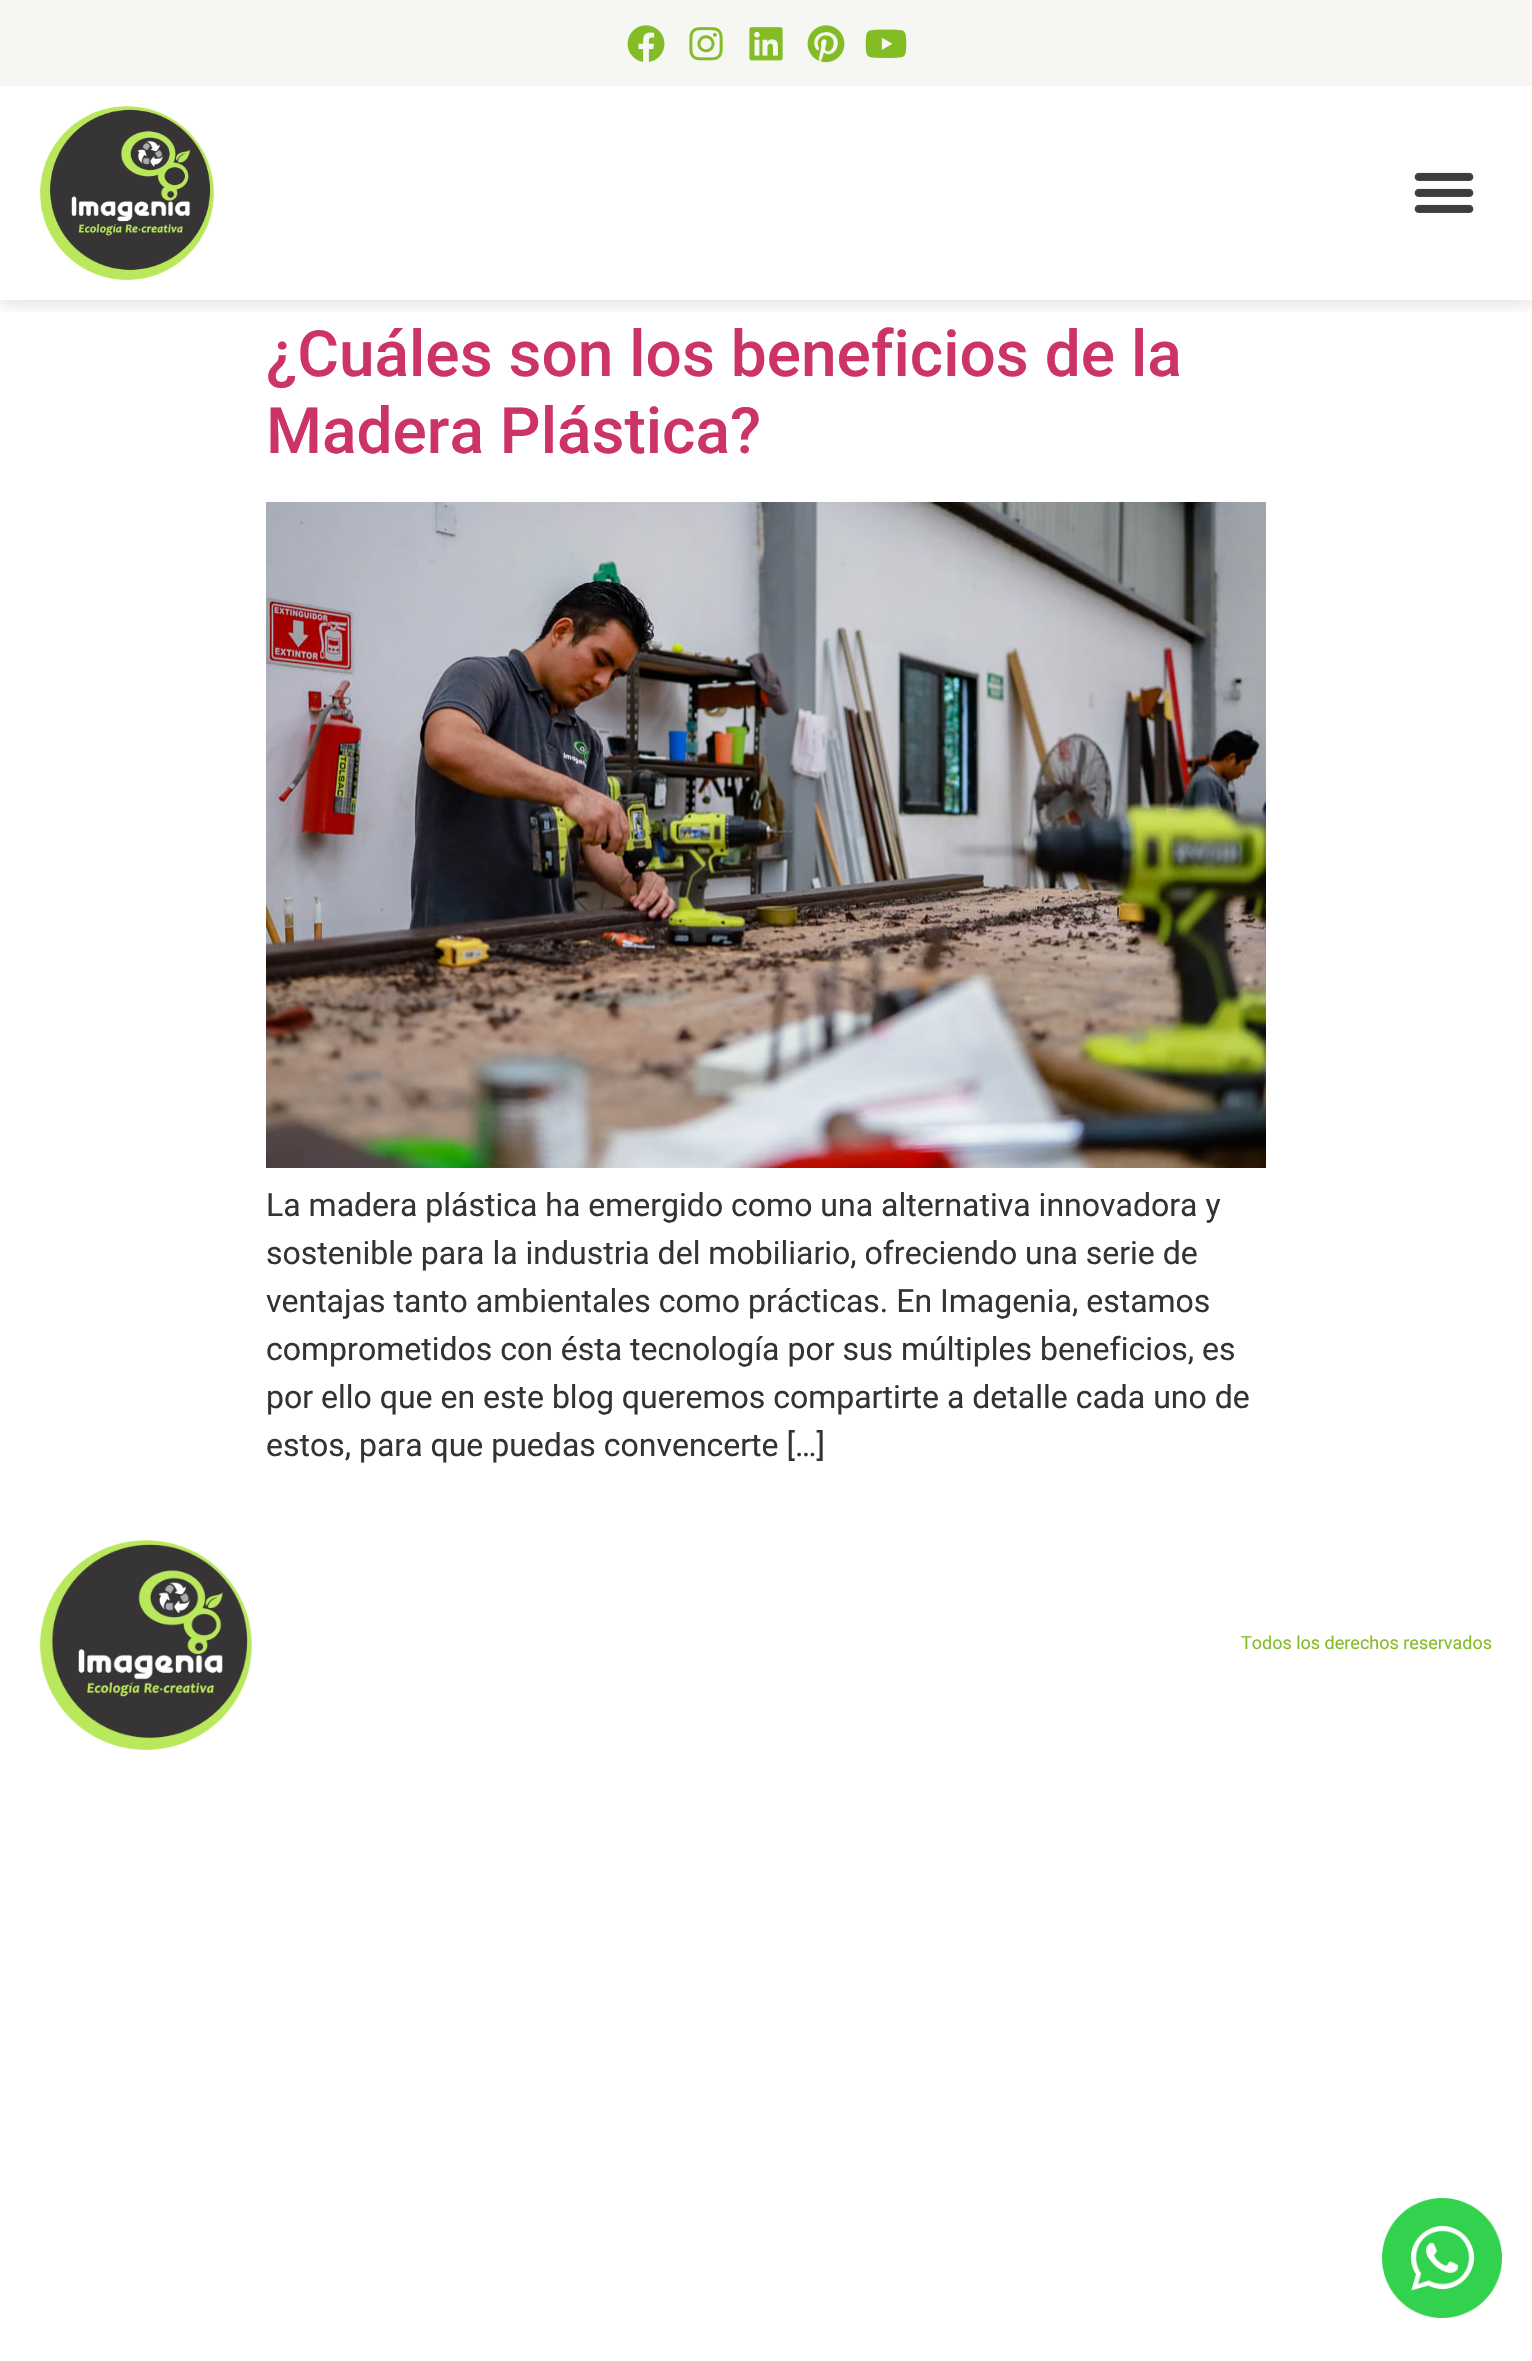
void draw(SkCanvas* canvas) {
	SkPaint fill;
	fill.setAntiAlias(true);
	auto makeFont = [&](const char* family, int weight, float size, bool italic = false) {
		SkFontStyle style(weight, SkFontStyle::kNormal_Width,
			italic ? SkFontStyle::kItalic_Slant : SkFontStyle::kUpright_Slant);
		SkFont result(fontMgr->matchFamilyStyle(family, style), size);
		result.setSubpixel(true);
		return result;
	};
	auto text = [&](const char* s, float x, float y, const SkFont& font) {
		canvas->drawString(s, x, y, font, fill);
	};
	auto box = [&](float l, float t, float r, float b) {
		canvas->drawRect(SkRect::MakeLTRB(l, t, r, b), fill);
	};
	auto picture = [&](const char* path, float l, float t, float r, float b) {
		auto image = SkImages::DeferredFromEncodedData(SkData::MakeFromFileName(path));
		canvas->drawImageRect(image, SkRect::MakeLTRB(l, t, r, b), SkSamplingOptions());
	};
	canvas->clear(0xFFFFFFFF);
	canvas->save();
	canvas->clipRect(SkRect::MakeLTRB(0, 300, 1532, 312));
	fill.setColor(0x2B000000);
	fill.setMaskFilter(SkMaskFilter::MakeBlur(kNormal_SkBlurStyle, 10));
	canvas->drawRect(SkRect::MakeLTRB(0, 86, 1532, 300), fill);
	fill.setMaskFilter(nullptr);
	canvas->restore();
	fill.setColor(0xFFF6F7F3);
	box(0, 0, 1532, 86);
	picture("image0.png", 627, 25, 665, 62);
	picture("image1.png", 689, 27, 723, 61);
	picture("image2.png", 749, 27, 783, 61);
	picture("image3.png", 807, 25, 845, 63);
	picture("image4.png", 865, 29, 907, 58);
	picture("image5.png", 40, 106, 214, 280);
	picture("image6.png", 1414, 172, 1474, 213);
	picture("image7.png", 266, 502, 1266, 1168);
	picture("image8.png", 40, 1540, 252, 1750);
	picture("image9.png", 1382, 2198, 1502, 2318);
	auto font1 = makeFont("Roboto", 500, 64);
	fill.setColor(0xFFCC3366);
	text("¿Cuáles son los beneficios de la", 266, 376, font1);
	text("Madera Plástica?", 266, 453, font1);
	auto font2 = makeFont("Roboto", 400, 32);
	fill.setColor(0xFF333333);
	text("La madera plástica ha emergido como una alternativa innovadora y", 266, 1216, font2);
	text("sostenible para la industria del mobiliario, ofreciendo una serie de", 266, 1264, font2);
	text("ventajas tanto ambientales como prácticas. En Imagenia, estamos", 266, 1312, font2);
	text("comprometidos con ésta tecnología por sus múltiples beneficios, es", 266, 1360, font2);
	text("por ello que en este blog queremos compartirte a detalle cada uno de", 266, 1408, font2);
	text("estos, para que puedas convencerte […]", 266, 1456, font2);
	auto font3 = makeFont("Roboto", 400, 18);
	fill.setColor(0xFF84BC26);
	text("Todos los derechos reservados", 1241, 1649, font3);
}
